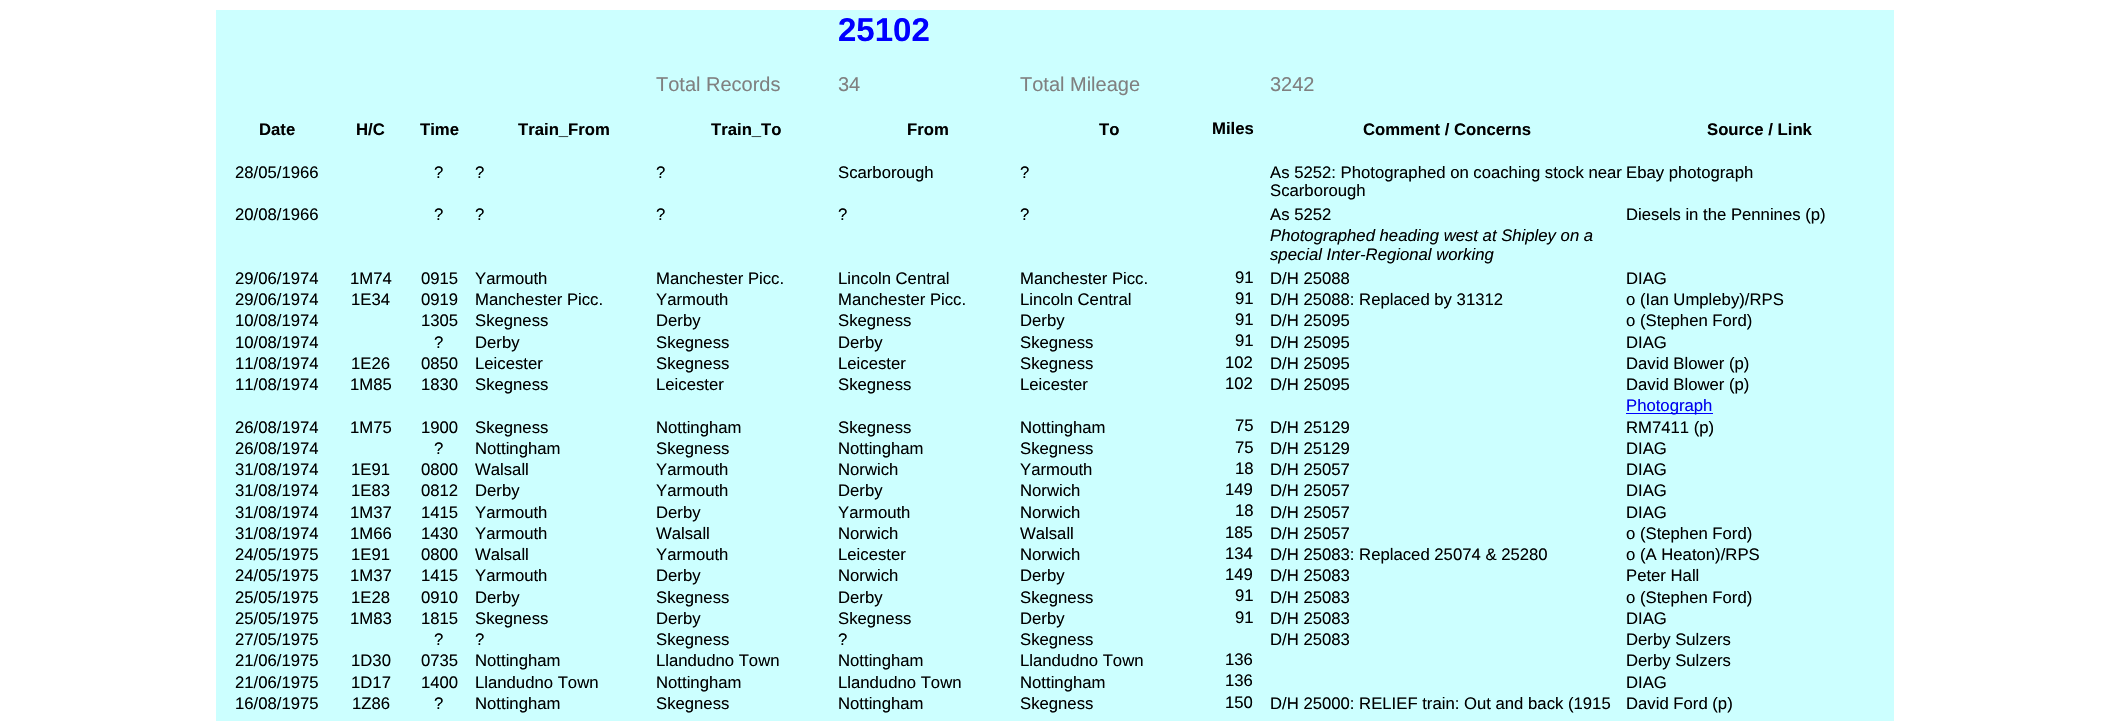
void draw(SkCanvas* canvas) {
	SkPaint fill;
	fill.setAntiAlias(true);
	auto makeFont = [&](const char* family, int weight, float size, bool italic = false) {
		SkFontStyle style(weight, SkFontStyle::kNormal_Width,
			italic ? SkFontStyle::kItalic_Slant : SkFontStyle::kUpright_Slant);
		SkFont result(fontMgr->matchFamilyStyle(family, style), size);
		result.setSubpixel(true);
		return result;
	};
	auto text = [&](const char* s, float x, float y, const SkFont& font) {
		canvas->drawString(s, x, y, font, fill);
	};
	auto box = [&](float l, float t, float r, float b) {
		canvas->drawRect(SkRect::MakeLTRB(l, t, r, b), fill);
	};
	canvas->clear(0xFFFFFFFF);
	fill.setColor(0xFFCCFFFF);
	box(216, 10, 1894, 721);
	fill.setColor(0xFF0000FF);
	box(1626, 413, 1713, 414);
	auto font1 = makeFont("Liberation Sans", 700, 33);
	text("25102", 838, 41, font1);
	auto font2 = makeFont("Liberation Sans", 400, 20);
	fill.setColor(0xFF808080);
	text("Total Records", 656, 91, font2);
	text("34", 838, 91, font2);
	text("Total Mileage", 1020, 91, font2);
	text("3242", 1270, 91, font2);
	auto font3 = makeFont("Liberation Sans", 700, 16.7f);
	fill.setColor(0xFF000000);
	text("Date", 259, 135, font3);
	text("H/C", 356, 135, font3);
	text("Time", 420, 135, font3);
	text("Train_From", 518, 135, font3);
	text("Train_To", 711, 135, font3);
	text("From", 907, 135, font3);
	text("To", 1099, 135, font3);
	text("Miles", 1212, 134, font3);
	text("Comment / Concerns", 1363, 135, font3);
	text("Source / Link", 1707, 135, font3);
	auto font4 = makeFont("Liberation Sans", 400, 16.7f);
	text("28/05/1966", 235, 178, font4);
	text("?", 434, 178, font4);
	text("?", 475, 178, font4);
	text("?", 656, 178, font4);
	text("Scarborough", 838, 178, font4);
	text("?", 1020, 178, font4);
	text("As 5252: Photographed on coaching stock near", 1270, 178, font4);
	text("Scarborough", 1270, 196, font4);
	text("Ebay photograph", 1626, 178, font4);
	text("20/08/1966", 235, 220, font4);
	text("?", 434, 220, font4);
	text("?", 475, 220, font4);
	text("?", 656, 220, font4);
	text("?", 838, 220, font4);
	text("?", 1020, 220, font4);
	text("As 5252", 1270, 220, font4);
	text("Diesels in the Pennines (p)", 1626, 220, font4);
	auto font5 = makeFont("Liberation Sans", 400, 16.7f, true);
	text("Photographed heading west at Shipley on a", 1270, 241, font5);
	text("special Inter-Regional working", 1270, 260, font5);
	text("29/06/1974", 235, 284, font4);
	text("1M74", 350, 284, font4);
	text("0915", 421, 284, font4);
	text("Yarmouth", 475, 284, font4);
	text("Manchester Picc.", 656, 284, font4);
	text("Lincoln Central", 838, 284, font4);
	text("Manchester Picc.", 1020, 284, font4);
	text("91", 1235, 283, font4);
	text("D/H 25088", 1270, 284, font4);
	text("DIAG", 1626, 284, font4);
	text("29/06/1974", 235, 305, font4);
	text("1E34", 351, 305, font4);
	text("0919", 421, 305, font4);
	text("Manchester Picc.", 475, 305, font4);
	text("Yarmouth", 656, 305, font4);
	text("Manchester Picc.", 838, 305, font4);
	text("Lincoln Central", 1020, 305, font4);
	text("91", 1235, 304, font4);
	text("D/H 25088: Replaced by 31312", 1270, 305, font4);
	text("o (Ian Umpleby)/RPS", 1626, 305, font4);
	text("10/08/1974", 235, 326, font4);
	text("1305", 421, 326, font4);
	text("Skegness", 475, 326, font4);
	text("Derby", 656, 326, font4);
	text("Skegness", 838, 326, font4);
	text("Derby", 1020, 326, font4);
	text("91", 1235, 325, font4);
	text("D/H 25095", 1270, 326, font4);
	text("o (Stephen Ford)", 1626, 326, font4);
	text("10/08/1974", 235, 348, font4);
	text("?", 434, 348, font4);
	text("Derby", 475, 348, font4);
	text("Skegness", 656, 348, font4);
	text("Derby", 838, 348, font4);
	text("Skegness", 1020, 348, font4);
	text("91", 1235, 346, font4);
	text("D/H 25095", 1270, 348, font4);
	text("DIAG", 1626, 348, font4);
	text("11/08/1974", 235, 369, font4);
	text("1E26", 351, 369, font4);
	text("0850", 421, 369, font4);
	text("Leicester", 475, 369, font4);
	text("Skegness", 656, 369, font4);
	text("Leicester", 838, 369, font4);
	text("Skegness", 1020, 369, font4);
	text("102", 1225, 368, font4);
	text("D/H 25095", 1270, 369, font4);
	text("David Blower (p)", 1626, 369, font4);
	text("11/08/1974", 235, 390, font4);
	text("1M85", 350, 390, font4);
	text("1830", 421, 390, font4);
	text("Skegness", 475, 390, font4);
	text("Leicester", 656, 390, font4);
	text("Skegness", 838, 390, font4);
	text("Leicester", 1020, 390, font4);
	text("102", 1225, 389, font4);
	text("D/H 25095", 1270, 390, font4);
	text("David Blower (p)", 1626, 390, font4);
	fill.setColor(0xFF0000EE);
	text("Photograph", 1626, 411, font4);
	fill.setColor(0xFF000000);
	text("26/08/1974", 235, 433, font4);
	text("1M75", 350, 433, font4);
	text("1900", 421, 433, font4);
	text("Skegness", 475, 433, font4);
	text("Nottingham", 656, 433, font4);
	text("Skegness", 838, 433, font4);
	text("Nottingham", 1020, 433, font4);
	text("75", 1235, 431, font4);
	text("D/H 25129", 1270, 433, font4);
	text("RM7411 (p)", 1626, 433, font4);
	text("26/08/1974", 235, 454, font4);
	text("?", 434, 454, font4);
	text("Nottingham", 475, 454, font4);
	text("Skegness", 656, 454, font4);
	text("Nottingham", 838, 454, font4);
	text("Skegness", 1020, 454, font4);
	text("75", 1235, 453, font4);
	text("D/H 25129", 1270, 454, font4);
	text("DIAG", 1626, 454, font4);
	text("31/08/1974", 235, 475, font4);
	text("1E91", 351, 475, font4);
	text("0800", 421, 475, font4);
	text("Walsall", 475, 475, font4);
	text("Yarmouth", 656, 475, font4);
	text("Norwich", 838, 475, font4);
	text("Yarmouth", 1020, 475, font4);
	text("18", 1235, 474, font4);
	text("D/H 25057", 1270, 475, font4);
	text("DIAG", 1626, 475, font4);
	text("31/08/1974", 235, 496, font4);
	text("1E83", 351, 496, font4);
	text("0812", 421, 496, font4);
	text("Derby", 475, 496, font4);
	text("Yarmouth", 656, 496, font4);
	text("Derby", 838, 496, font4);
	text("Norwich", 1020, 496, font4);
	text("149", 1225, 495, font4);
	text("D/H 25057", 1270, 496, font4);
	text("DIAG", 1626, 496, font4);
	text("31/08/1974", 235, 518, font4);
	text("1M37", 350, 518, font4);
	text("1415", 421, 518, font4);
	text("Yarmouth", 475, 518, font4);
	text("Derby", 656, 518, font4);
	text("Yarmouth", 838, 518, font4);
	text("Norwich", 1020, 518, font4);
	text("18", 1235, 516, font4);
	text("D/H 25057", 1270, 518, font4);
	text("DIAG", 1626, 518, font4);
	text("31/08/1974", 235, 539, font4);
	text("1M66", 350, 539, font4);
	text("1430", 421, 539, font4);
	text("Yarmouth", 475, 539, font4);
	text("Walsall", 656, 539, font4);
	text("Norwich", 838, 539, font4);
	text("Walsall", 1020, 539, font4);
	text("185", 1225, 538, font4);
	text("D/H 25057", 1270, 539, font4);
	text("o (Stephen Ford)", 1626, 539, font4);
	text("24/05/1975", 235, 560, font4);
	text("1E91", 351, 560, font4);
	text("0800", 421, 560, font4);
	text("Walsall", 475, 560, font4);
	text("Yarmouth", 656, 560, font4);
	text("Leicester", 838, 560, font4);
	text("Norwich", 1020, 560, font4);
	text("134", 1225, 559, font4);
	text("D/H 25083: Replaced 25074 & 25280", 1270, 560, font4);
	text("o (A Heaton)/RPS", 1626, 560, font4);
	text("24/05/1975", 235, 581, font4);
	text("1M37", 350, 581, font4);
	text("1415", 421, 581, font4);
	text("Yarmouth", 475, 581, font4);
	text("Derby", 656, 581, font4);
	text("Norwich", 838, 581, font4);
	text("Derby", 1020, 581, font4);
	text("149", 1225, 580, font4);
	text("D/H 25083", 1270, 581, font4);
	text("Peter Hall", 1626, 581, font4);
	text("25/05/1975", 235, 603, font4);
	text("1E28", 351, 603, font4);
	text("0910", 421, 603, font4);
	text("Derby", 475, 603, font4);
	text("Skegness", 656, 603, font4);
	text("Derby", 838, 603, font4);
	text("Skegness", 1020, 603, font4);
	text("91", 1235, 601, font4);
	text("D/H 25083", 1270, 603, font4);
	text("o (Stephen Ford)", 1626, 603, font4);
	text("25/05/1975", 235, 624, font4);
	text("1M83", 350, 624, font4);
	text("1815", 421, 624, font4);
	text("Skegness", 475, 624, font4);
	text("Derby", 656, 624, font4);
	text("Skegness", 838, 624, font4);
	text("Derby", 1020, 624, font4);
	text("91", 1235, 623, font4);
	text("D/H 25083", 1270, 624, font4);
	text("DIAG", 1626, 624, font4);
	text("27/05/1975", 235, 645, font4);
	text("?", 434, 645, font4);
	text("?", 475, 645, font4);
	text("Skegness", 656, 645, font4);
	text("?", 838, 645, font4);
	text("Skegness", 1020, 645, font4);
	text("D/H 25083", 1270, 645, font4);
	text("Derby Sulzers", 1626, 645, font4);
	text("21/06/1975", 235, 666, font4);
	text("1D30", 351, 666, font4);
	text("0735", 421, 666, font4);
	text("Nottingham", 475, 666, font4);
	text("Llandudno Town", 656, 666, font4);
	text("Nottingham", 838, 666, font4);
	text("Llandudno Town", 1020, 666, font4);
	text("136", 1225, 665, font4);
	text("Derby Sulzers", 1626, 666, font4);
	text("21/06/1975", 235, 688, font4);
	text("1D17", 351, 688, font4);
	text("1400", 421, 688, font4);
	text("Llandudno Town", 475, 688, font4);
	text("Nottingham", 656, 688, font4);
	text("Llandudno Town", 838, 688, font4);
	text("Nottingham", 1020, 688, font4);
	text("136", 1225, 686, font4);
	text("DIAG", 1626, 688, font4);
	text("16/08/1975", 235, 709, font4);
	text("1Z86", 352, 709, font4);
	text("?", 434, 709, font4);
	text("Nottingham", 475, 709, font4);
	text("Skegness", 656, 709, font4);
	text("Nottingham", 838, 709, font4);
	text("Skegness", 1020, 709, font4);
	text("150", 1225, 708, font4);
	text("D/H 25000: RELIEF train: Out and back (1915", 1270, 709, font4);
	text("David Ford (p)", 1626, 709, font4);
}
